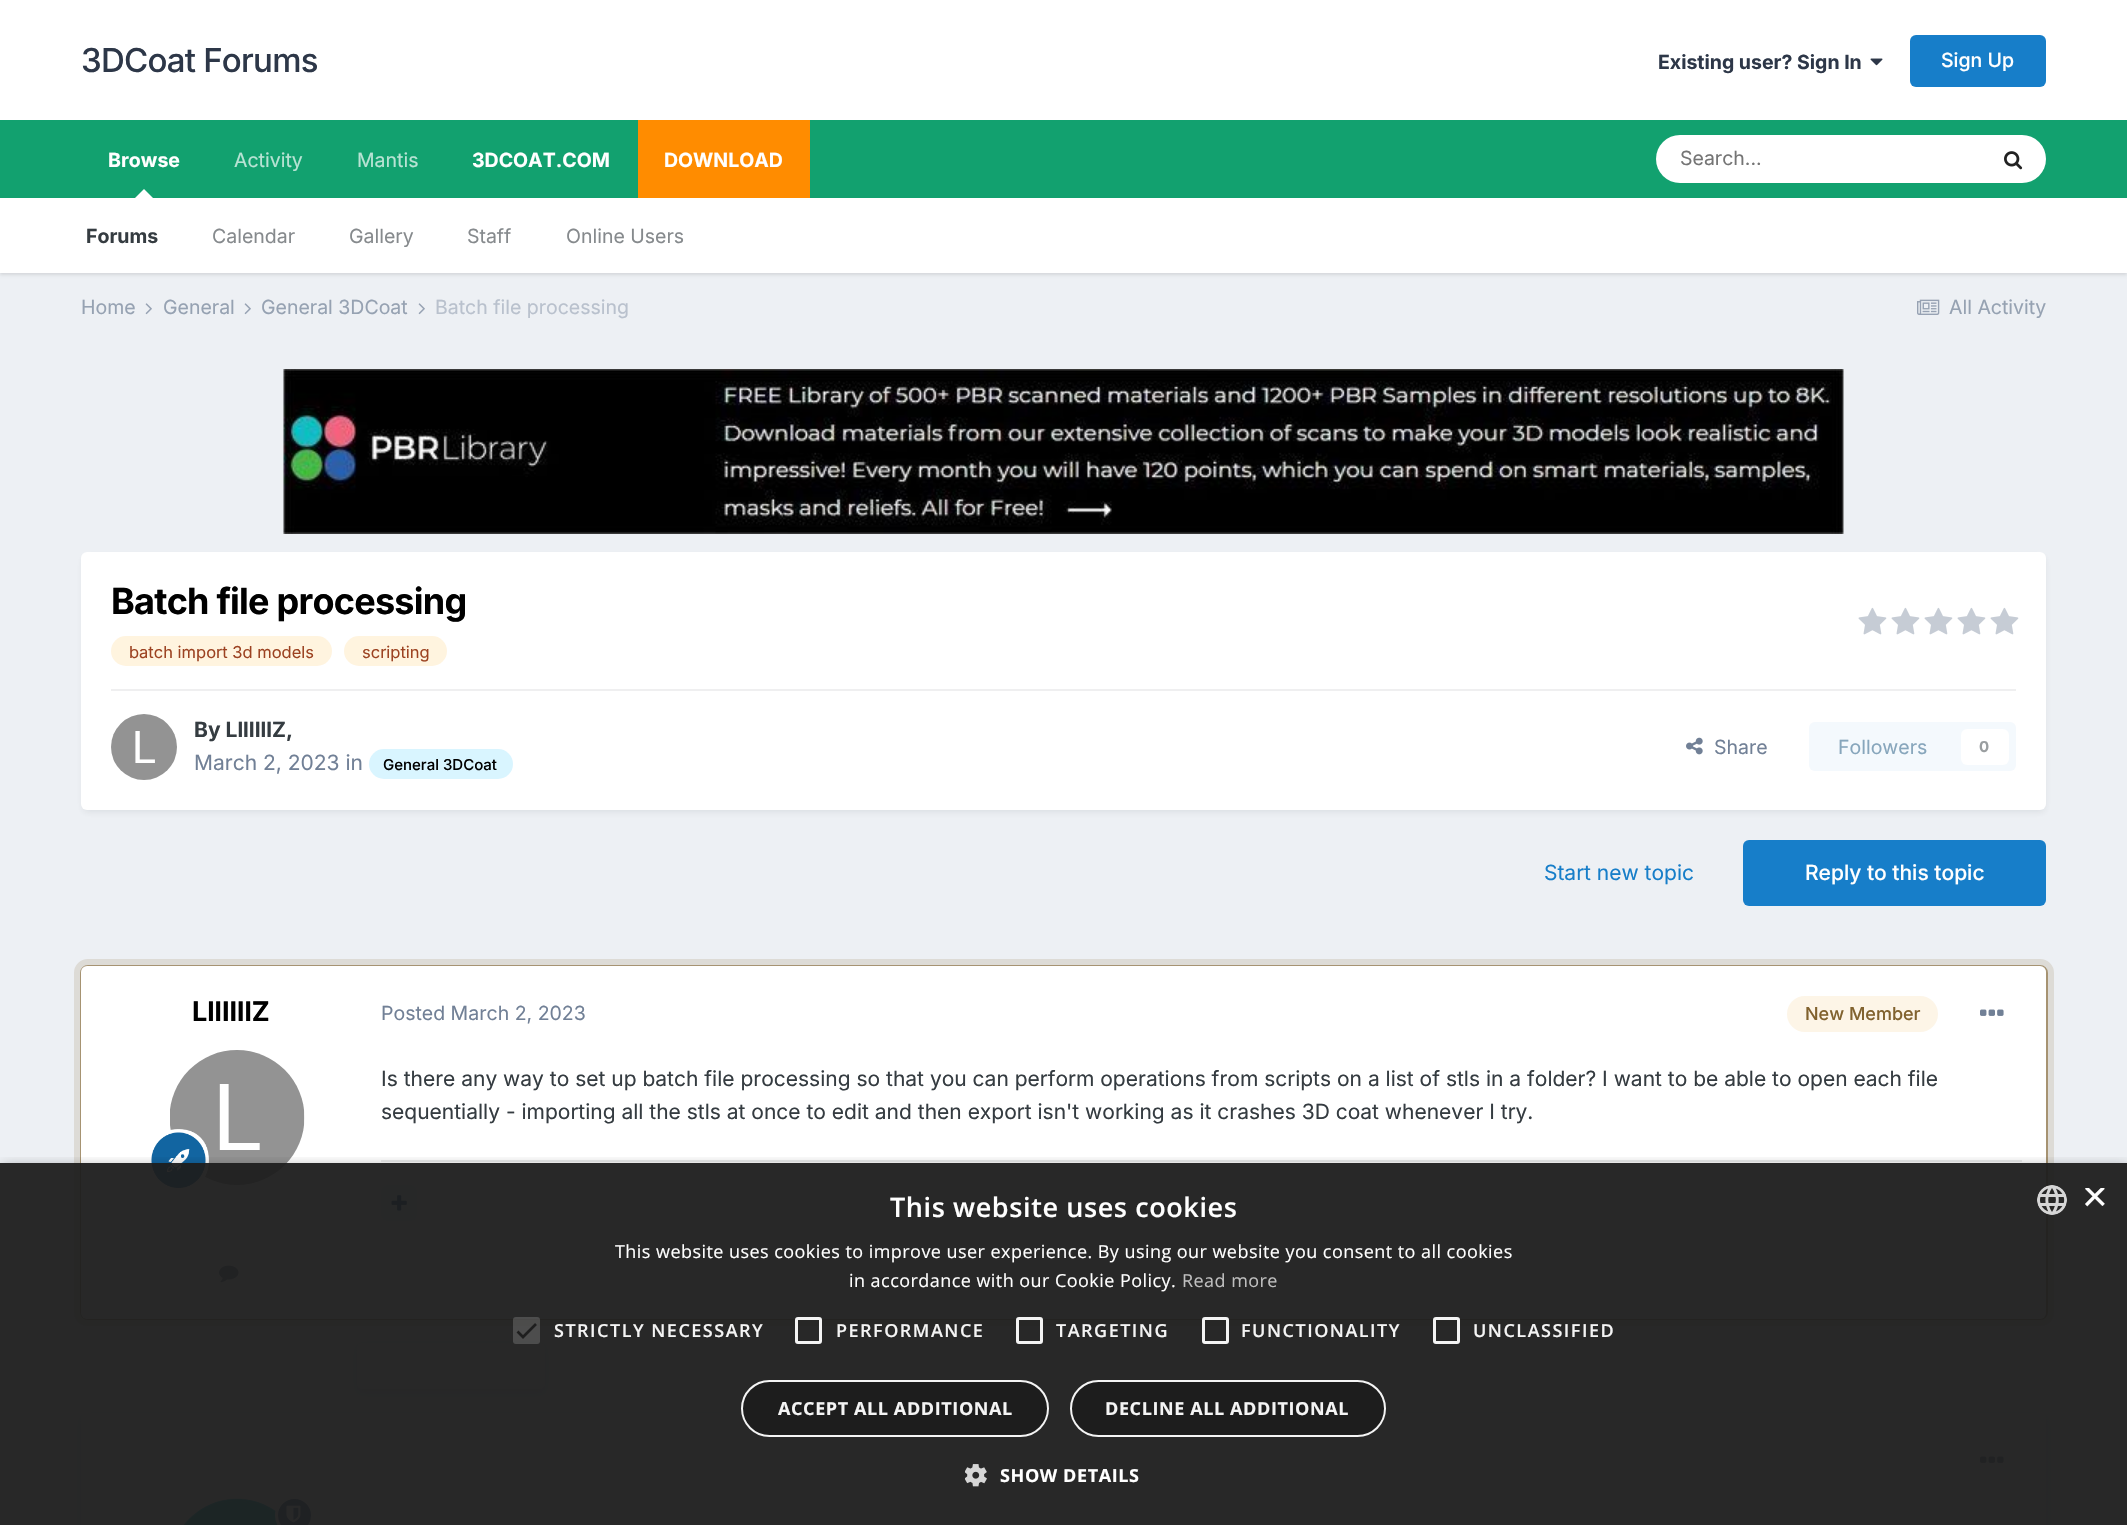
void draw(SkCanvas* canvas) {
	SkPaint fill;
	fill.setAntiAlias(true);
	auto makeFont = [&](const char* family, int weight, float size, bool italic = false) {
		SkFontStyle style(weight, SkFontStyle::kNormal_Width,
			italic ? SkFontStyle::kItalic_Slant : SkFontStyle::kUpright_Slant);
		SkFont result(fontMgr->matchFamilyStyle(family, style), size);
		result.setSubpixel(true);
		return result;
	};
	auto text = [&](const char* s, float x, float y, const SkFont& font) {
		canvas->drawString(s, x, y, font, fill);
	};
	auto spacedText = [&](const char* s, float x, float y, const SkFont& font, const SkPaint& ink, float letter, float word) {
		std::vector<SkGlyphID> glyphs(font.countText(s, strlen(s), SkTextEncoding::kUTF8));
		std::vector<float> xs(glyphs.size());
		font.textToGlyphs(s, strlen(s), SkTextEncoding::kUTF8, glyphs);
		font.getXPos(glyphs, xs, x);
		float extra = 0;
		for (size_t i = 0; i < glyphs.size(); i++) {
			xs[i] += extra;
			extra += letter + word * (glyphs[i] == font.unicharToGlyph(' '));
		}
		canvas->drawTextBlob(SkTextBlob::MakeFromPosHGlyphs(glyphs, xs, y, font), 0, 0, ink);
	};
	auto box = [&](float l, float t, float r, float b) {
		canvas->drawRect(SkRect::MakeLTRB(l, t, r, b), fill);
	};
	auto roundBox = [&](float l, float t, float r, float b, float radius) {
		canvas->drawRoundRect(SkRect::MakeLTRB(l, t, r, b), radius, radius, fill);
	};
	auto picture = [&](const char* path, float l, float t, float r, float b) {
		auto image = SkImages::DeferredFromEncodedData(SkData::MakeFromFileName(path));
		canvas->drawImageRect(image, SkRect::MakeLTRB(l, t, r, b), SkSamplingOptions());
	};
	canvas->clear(0xFFEDF0F4);
	fill.setColor(0xFFFFFFFF);
	box(0, 0, 2127, 120);
	picture("image0.png", 1870, 58, 1883, 66);
	fill.setColor(0xFF177EC9);
	roundBox(1910, 35, 2046, 87, 6);
	fill.setColor(0xFF12A16F);
	box(0, 120, 2127, 198);
	fill.setColor(0x1A000000);
	fill.setMaskFilter(SkMaskFilter::MakeBlur(kNormal_SkBlurStyle, 1.5f));
	canvas->drawRect(SkRect::MakeLTRB(0, 200, 2127, 275), fill);
	fill.setMaskFilter(nullptr);
	fill.setColor(0xFFFFFFFF);
	canvas->drawPath(SkPathBuilder().moveTo(153, 198).lineTo(135, 198).lineTo(144, 189).close().detach(), fill);
	fill.setColor(0xFFFF8C00);
	box(638, 120, 810, 198);
	fill.setColor(0xFFFFFFFF);
	roundBox(1656, 135, 2046, 183, 24);
	picture("image1.png", 2004, 151, 2023, 170);
	box(0, 198, 2127, 273);
	picture("image2.png", 145, 303, 152, 315);
	picture("image2.png", 244, 303, 251, 315);
	picture("image2.png", 418, 303, 425, 315);
	picture("image3.png", 1917, 299, 1940, 315);
	fill.setColor(0xFFF7FAFC);
	box(1843, 369, 1844, 534);
	picture("image4.png", 283, 369, 1844, 534);
	fill.setColor(0x1A2D3748);
	fill.setMaskFilter(SkMaskFilter::MakeBlur(kNormal_SkBlurStyle, 3));
	canvas->drawRoundRect(SkRect::MakeLTRB(83, 557, 2045, 812), 5, 5, fill);
	fill.setMaskFilter(nullptr);
	fill.setColor(0xFFFFFFFF);
	roundBox(81, 552, 2046, 810, 6);
	fill.setColor(0xFFFFF4DF);
	roundBox(111, 636, 332, 666, 15);
	roundBox(344, 636, 447, 666, 15);
	picture("image5.png", 1858, 607, 1887, 635);
	picture("image5.png", 1891, 607, 1920, 635);
	picture("image5.png", 1924, 607, 1953, 635);
	picture("image5.png", 1957, 607, 1986, 635);
	picture("image5.png", 1990, 607, 2019, 635);
	fill.setColor(0xFFEFEFF0);
	box(111, 689, 2016, 691);
	picture("image6.png", 111, 714, 177, 780);
	fill.setColor(0xFFD9F5FF);
	roundBox(369, 749, 513, 779, 15);
	picture("image7.png", 1686, 737, 1703, 755);
	fill.setColor(0xFFF4F9FD);
	roundBox(1809, 722, 2016, 771, 6);
	fill.setColor(0xFFFFFFFF);
	roundBox(1961, 729, 2009, 765, 6);
	fill.setColor(0xFF177EC9);
	roundBox(1743, 840, 2046, 906, 6);
	fill.setStyle(SkPaint::kStroke_Style);
	fill.setStrokeWidth(8);
	fill.setColor(0xFFDDDBD6);
	canvas->drawRoundRect(SkRect::MakeLTRB(78, 963, 2050, 1322), 10, 10, fill);
	fill.setStrokeWidth(2);
	fill.setColor(0x9981622E);
	canvas->drawRoundRect(SkRect::MakeLTRB(81, 966, 2047, 1319), 7, 7, fill);
	fill.setStyle(SkPaint::kFill_Style);
	fill.setColor(0xFFFFFFFF);
	roundBox(81, 966, 2046, 1319, 6);
	picture("image8.png", 170, 1050, 305, 1185);
	picture("image9.png", 151, 1129, 209, 1188);
	picture("image10.png", 219, 1265, 239, 1283);
	fill.setColor(0xFFFDF5E7);
	roundBox(1787, 996, 1938, 1032, 18);
	picture("image11.png", 1980, 1009, 2004, 1016);
	fill.setColor(0xFFEBECEC);
	box(381, 1160, 2022, 1162);
	fill.setColor(0xFFE8F2FA);
	roundBox(381, 1185, 417, 1221, 6);
	picture("image12.png", 391, 1195, 407, 1211);
	fill.setColor(0x1A2D3748);
	fill.setMaskFilter(SkMaskFilter::MakeBlur(kNormal_SkBlurStyle, 3));
	canvas->drawRoundRect(SkRect::MakeLTRB(359, 1347, 543, 1391), 5, 5, fill);
	fill.setMaskFilter(nullptr);
	fill.setColor(0xFFFFFFFF);
	roundBox(357, 1343, 545, 1389, 6);
	fill.setColor(0x1A2D3748);
	fill.setMaskFilter(SkMaskFilter::MakeBlur(kNormal_SkBlurStyle, 3));
	canvas->drawRoundRect(SkRect::MakeLTRB(83, 1418, 2045, 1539), 5, 5, fill);
	fill.setMaskFilter(nullptr);
	fill.setColor(0xFFFFFFFF);
	roundBox(81, 1413, 2046, 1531, 6);
	picture("image11.png", 1980, 1456, 2004, 1463);
	picture("image13.png", 183, 1498, 278, 1525);
	fill.setColor(0xFF3D6594);
	canvas->drawCircle(294.5f, 1515.5f, 18, fill);
	fill.setStyle(SkPaint::kStroke_Style);
	fill.setStrokeWidth(3);
	fill.setColor(0xFFFFFFFF);
	canvas->drawCircle(294.5f, 1515.5f, 18, fill);
	picture("image14.png", 286, 1505, 301, 1523);
	canvas->save();
	canvas->clipRect(SkRect::MakeLTRB(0, 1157, 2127, 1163));
	fill.setStyle(SkPaint::kFill_Style);
	fill.setColor(0x54000000);
	fill.setMaskFilter(SkMaskFilter::MakeBlur(kNormal_SkBlurStyle, 6));
	canvas->drawRect(SkRect::MakeLTRB(2, 1166, 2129, 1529), fill);
	fill.setMaskFilter(nullptr);
	canvas->restore();
	fill.setColor(0xF21C1C1C);
	box(0, 1163, 2127, 1525);
	picture("image15.png", 2037, 1185, 2067, 1215);
	fill.setColor(0x40BCBCBC);
	roundBox(513, 1317, 540, 1344, 3);
	fill.setStyle(SkPaint::kStroke_Style);
	fill.setStrokeWidth(2.7f);
	fill.setColor(0xFF1E1E1E);
	canvas->drawPath(SkPathBuilder().moveTo(517.5f, 1331.5f).lineTo(523, 1337).lineTo(536, 1324).detach(), fill);
	fill.setStrokeWidth(3);
	fill.setColor(0xF2FFFFFF);
	canvas->drawRoundRect(SkRect::MakeLTRB(796.5f, 1318.5f, 820.5f, 1342.5f), 1.5f, 1.5f, fill);
	canvas->drawRoundRect(SkRect::MakeLTRB(1017.5f, 1318.5f, 1041.5f, 1342.5f), 1.5f, 1.5f, fill);
	canvas->drawRoundRect(SkRect::MakeLTRB(1203.5f, 1318.5f, 1227.5f, 1342.5f), 1.5f, 1.5f, fill);
	canvas->drawRoundRect(SkRect::MakeLTRB(1434.5f, 1318.5f, 1458.5f, 1342.5f), 1.5f, 1.5f, fill);
	fill.setStyle(SkPaint::kFill_Style);
	fill.setColor(0xFF1D1D1D);
	roundBox(741, 1380, 1049, 1437, 28.5f);
	fill.setStyle(SkPaint::kStroke_Style);
	fill.setStrokeWidth(2);
	fill.setColor(0xF2FFFFFF);
	canvas->drawRoundRect(SkRect::MakeLTRB(742, 1381, 1048, 1436), 27.5f, 27.5f, fill);
	fill.setStyle(SkPaint::kFill_Style);
	fill.setColor(0xFF1D1D1D);
	roundBox(1070, 1380, 1386, 1437, 28.5f);
	fill.setStyle(SkPaint::kStroke_Style);
	fill.setColor(0xF2FFFFFF);
	canvas->drawRoundRect(SkRect::MakeLTRB(1071, 1381, 1385, 1436), 27.5f, 27.5f, fill);
	picture("image16.png", 965, 1464, 987, 1487);
	auto font1 = makeFont("Inter", 500, 33);
	fill.setStyle(SkPaint::kFill_Style);
	fill.setColor(0xFF2D3748);
	spacedText("3DCoat Forums", 81, 72, font1, fill, -0.75f, 0);
	auto font2 = makeFont("Inter", 700, 19.5f);
	text("Existing user? Sign In", 1658, 69, font2);
	auto font3 = makeFont("Inter", 500, 19.5f);
	fill.setColor(0xFFFFFFFF);
	text("Sign Up", 1941, 67, font3);
	text("Browse", 108, 167, font2);
	fill.setColor(0xFF353C41);
	text("Forums", 86, 243, font2);
	auto font4 = makeFont("Inter", 400, 19.5f);
	fill.setColor(0xFF868A8D);
	text("Calendar", 212, 243, font4);
	text("Gallery", 349, 243, font4);
	text("Staff", 467, 243, font4);
	text("Online Users", 566, 243, font4);
	fill.setColor(0xFFB8E3D4);
	text("Activity", 234, 167, font4);
	text("Mantis", 357, 167, font4);
	fill.setColor(0xFFFFFFFF);
	text("3DCOAT.COM", 472, 167, font2);
	text("DOWNLOAD", 664, 167, font2);
	fill.setColor(0xFF757575);
	text("Search...", 1680, 165, font4);
	fill.setColor(0xFF96A2B2);
	text("Home", 81, 314, font4);
	text("General", 163, 314, font4);
	text("General 3DCoat", 261, 314, font4);
	fill.setColor(0xFFB9C1CD);
	text("Batch file processing", 435, 314, font4);
	fill.setColor(0xFF96A2B2);
	text("All Activity", 1949, 314, font4);
	auto font5 = makeFont("Inter", 700, 36);
	fill.setColor(0xFF000000);
	spacedText("Batch file processing", 111, 614, font5, fill, -0.75f, 0);
	auto font6 = makeFont("Inter", 400, 16.5f);
	fill.setColor(0xFF9C4221);
	text("batch import 3d models", 129, 658, font6);
	text("scripting", 362, 658, font6);
	auto font7 = makeFont("Inter", 700, 21);
	fill.setColor(0xFF353C41);
	text("By LllIIllZ,", 194, 737, font7);
	auto font8 = makeFont("Inter", 400, 21);
	fill.setColor(0xFF718096);
	text("March 2, 2023 in", 194, 770, font8);
	auto font9 = makeFont("Inter", 500, 15);
	fill.setColor(0xFF000000);
	text("General 3DCoat", 383, 770, font9);
	fill.setColor(0xFF718096);
	text("Share", 1714, 754, font4);
	fill.setColor(0xFF87A6BC);
	text("Followers", 1838, 754, font4);
	auto font10 = makeFont("Inter", 700, 15);
	fill.setColor(0xFF9A9EA0);
	text("0", 1979, 752, font10);
	fill.setColor(0xFF177EC9);
	text("Start new topic", 1544, 880, font8);
	auto font11 = makeFont("Inter", 500, 21);
	fill.setColor(0xFFFFFFFF);
	text("Reply to this topic", 1805, 880, font11);
	auto font12 = makeFont("Inter", 700, 27);
	fill.setColor(0xFF000000);
	text("LllIIllZ", 192, 1021, font12);
	fill.setColor(0xFF718096);
	text("Posted March 2, 2023", 381, 1020, font4);
	auto font13 = makeFont("Inter", 500, 18);
	fill.setColor(0xFF81622E);
	text("New Member", 1805, 1020, font13);
	fill.setColor(0xFF353C41);
	text("Is there any way to set up batch file processing so that you can perform operations from scripts on a list of stls in a folder? I want to be able to open each file", 381, 1086, font8);
	text("sequentially - importing all the stls at once to edit and then export isn't working as it crashes 3D coat whenever I try.", 381, 1119, font8);
	auto font14 = makeFont("Open Sans", 600, 27);
	fill.setColor(0xFFFFFFFF);
	spacedText("This website uses cookies", 890, 1217, font14, fill, 0.6f, 0);
	canvas->save();
	canvas->clipRect(SkRect::MakeLTRB(2082, 1188, 2105, 1211));
	auto font15 = makeFont("Liberation Sans", 400, 44);
	text("×", 2082, 1211, font15);
	canvas->restore();
	auto font16 = makeFont("Open Sans", 400, 18);
	spacedText("This website uses cookies to improve user experience. By using our website you consent to all cookies", 615, 1258, font16, fill, 0.45f, 0);
	spacedText("in accordance with our Cookie Policy.", 849, 1287, font16, fill, 0.45f, 0);
	fill.setColor(0xFFBFBFBF);
	spacedText("Read more", 1182, 1287, font16, fill, 0.45f, 0);
	auto font17 = makeFont("Open Sans", 600, 18);
	fill.setColor(0xFFF4F4F4);
	spacedText("STRICTLY NECESSARY", 554, 1337, font17, fill, 1.5f, 0);
	spacedText("PERFORMANCE", 836, 1337, font17, fill, 1.5f, 0);
	spacedText("TARGETING", 1056, 1337, font17, fill, 1.5f, 0);
	spacedText("FUNCTIONALITY", 1241, 1337, font17, fill, 1.5f, 0);
	spacedText("UNCLASSIFIED", 1473, 1337, font17, fill, 1.5f, 0);
	auto font18 = makeFont("Open Sans", 700, 18);
	spacedText("ACCEPT ALL ADDITIONAL", 778, 1415, font18, fill, 0.6f, 0);
	spacedText("DECLINE ALL ADDITIONAL", 1105, 1415, font18, fill, 0.6f, 0);
	fill.setColor(0xFFFFFFFF);
	spacedText("SHOW DETAILS", 1000, 1482, font18, fill, 0.6f, 0);
}
